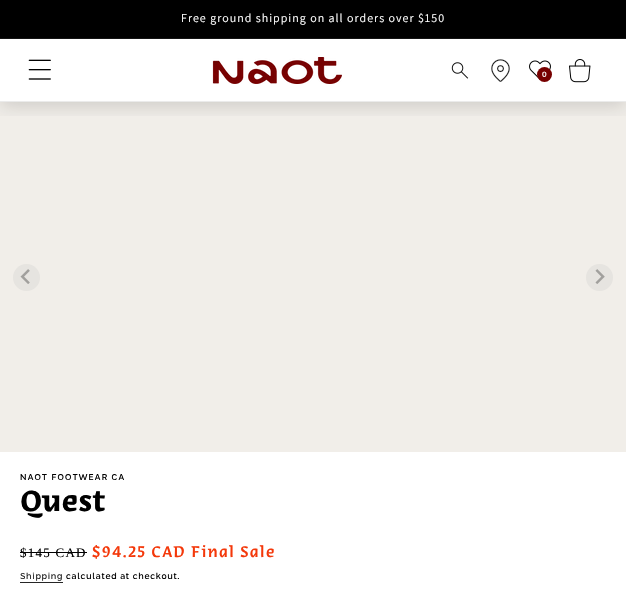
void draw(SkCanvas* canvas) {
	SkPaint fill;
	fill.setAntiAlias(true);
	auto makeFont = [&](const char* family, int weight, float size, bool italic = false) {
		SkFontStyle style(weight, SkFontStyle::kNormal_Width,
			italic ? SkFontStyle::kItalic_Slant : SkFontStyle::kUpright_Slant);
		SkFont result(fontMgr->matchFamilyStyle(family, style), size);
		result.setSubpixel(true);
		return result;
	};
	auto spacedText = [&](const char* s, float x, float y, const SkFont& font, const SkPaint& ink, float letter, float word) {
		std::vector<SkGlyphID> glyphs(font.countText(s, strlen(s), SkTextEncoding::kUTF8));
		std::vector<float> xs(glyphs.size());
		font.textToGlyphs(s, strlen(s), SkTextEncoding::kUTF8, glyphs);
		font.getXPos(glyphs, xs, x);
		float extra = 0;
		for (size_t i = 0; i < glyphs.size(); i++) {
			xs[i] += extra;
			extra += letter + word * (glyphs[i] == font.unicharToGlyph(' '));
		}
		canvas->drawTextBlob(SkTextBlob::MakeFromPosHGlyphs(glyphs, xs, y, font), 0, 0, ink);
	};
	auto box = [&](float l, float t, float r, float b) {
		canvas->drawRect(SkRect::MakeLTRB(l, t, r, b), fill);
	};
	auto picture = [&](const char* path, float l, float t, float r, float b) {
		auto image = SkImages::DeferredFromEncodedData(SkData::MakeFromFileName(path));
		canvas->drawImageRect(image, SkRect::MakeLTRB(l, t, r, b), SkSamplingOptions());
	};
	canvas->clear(0xFFFFFFFF);
	fill.setColor(0xFFF1EEE9);
	box(0, 102, 626, 452);
	canvas->save();
	canvas->clipRect(SkRect::MakeLTRB(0, 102, 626, 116));
	fill.setColor(0x26000000);
	fill.setMaskFilter(SkMaskFilter::MakeBlur(kNormal_SkBlurStyle, 9));
	canvas->drawRect(SkRect::MakeLTRB(0, 43, 626, 106), fill);
	fill.setMaskFilter(nullptr);
	canvas->restore();
	fill.setColor(0xFF000000);
	box(0, 0, 626, 38);
	fill.setColor(0xFF141414);
	box(0, 38, 626, 39);
	fill.setColor(0xFFEBEBEB);
	box(0, 101, 626, 102);
	picture("image0.png", 28, 59, 51, 80);
	picture("image1.png", 212, 57, 342, 84);
	picture("image2.png", 451, 62, 469, 79);
	picture("image3.png", 491, 59, 510, 82);
	picture("image4.png", 529, 60, 551, 80);
	fill.setColor(0xFF770000);
	canvas->drawCircle(544.5f, 74.5f, 7.5f, fill);
	picture("image5.png", 569, 59, 591, 83);
	fill.setColor(0xFFE6E4E0);
	canvas->drawCircle(26.5f, 277.5f, 13.5f, fill);
	picture("image6.png", 20, 269, 30, 284);
	canvas->drawCircle(599.5f, 277.5f, 13.5f, fill);
	picture("image7.png", 595, 269, 605, 284);
	fill.setColor(0xFF000000);
	box(20, 552, 87, 553);
	fill.setColor(0xFF262626);
	box(20, 582, 63, 583);
	auto font1 = makeFont("Assistant", 400, 12);
	fill.setColor(0xFFFFFFFF);
	spacedText("Free ground shipping on all orders over $150", 181, 22, font1, fill, 1, 0);
	auto font2 = makeFont("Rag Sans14", 400, 9);
	spacedText("0", 542, 77, font2, fill, 0.5f, 0);
	auto font3 = makeFont("Rag Sans14", 400, 10);
	fill.setColor(0xFF000000);
	spacedText("NAOT FOOTWEAR CA", 20, 480, font3, fill, 1.25f, 0);
	auto font4 = makeFont("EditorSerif", 700, 30);
	spacedText("Quest", 20, 511, font4, fill, 0.5f, 0);
	auto font5 = makeFont("Liberation Serif", 400, 13);
	spacedText("$145 CAD", 20, 557, font5, fill, 1.25f, 0);
	auto font6 = makeFont("EditorSerif", 500, 16);
	fill.setColor(0xFFF4380A);
	spacedText("$94.25 CAD", 92, 557, font6, fill, 1.25f, 0);
	spacedText("Final Sale", 191, 557, font6, fill, 1.25f, 0);
	fill.setColor(0xFF262626);
	spacedText("Shipping", 20, 579, font3, fill, 0.7f, 0);
	fill.setColor(0xFF000000);
	spacedText("calculated at checkout.", 66, 579, font3, fill, 0.7f, 0);
}
